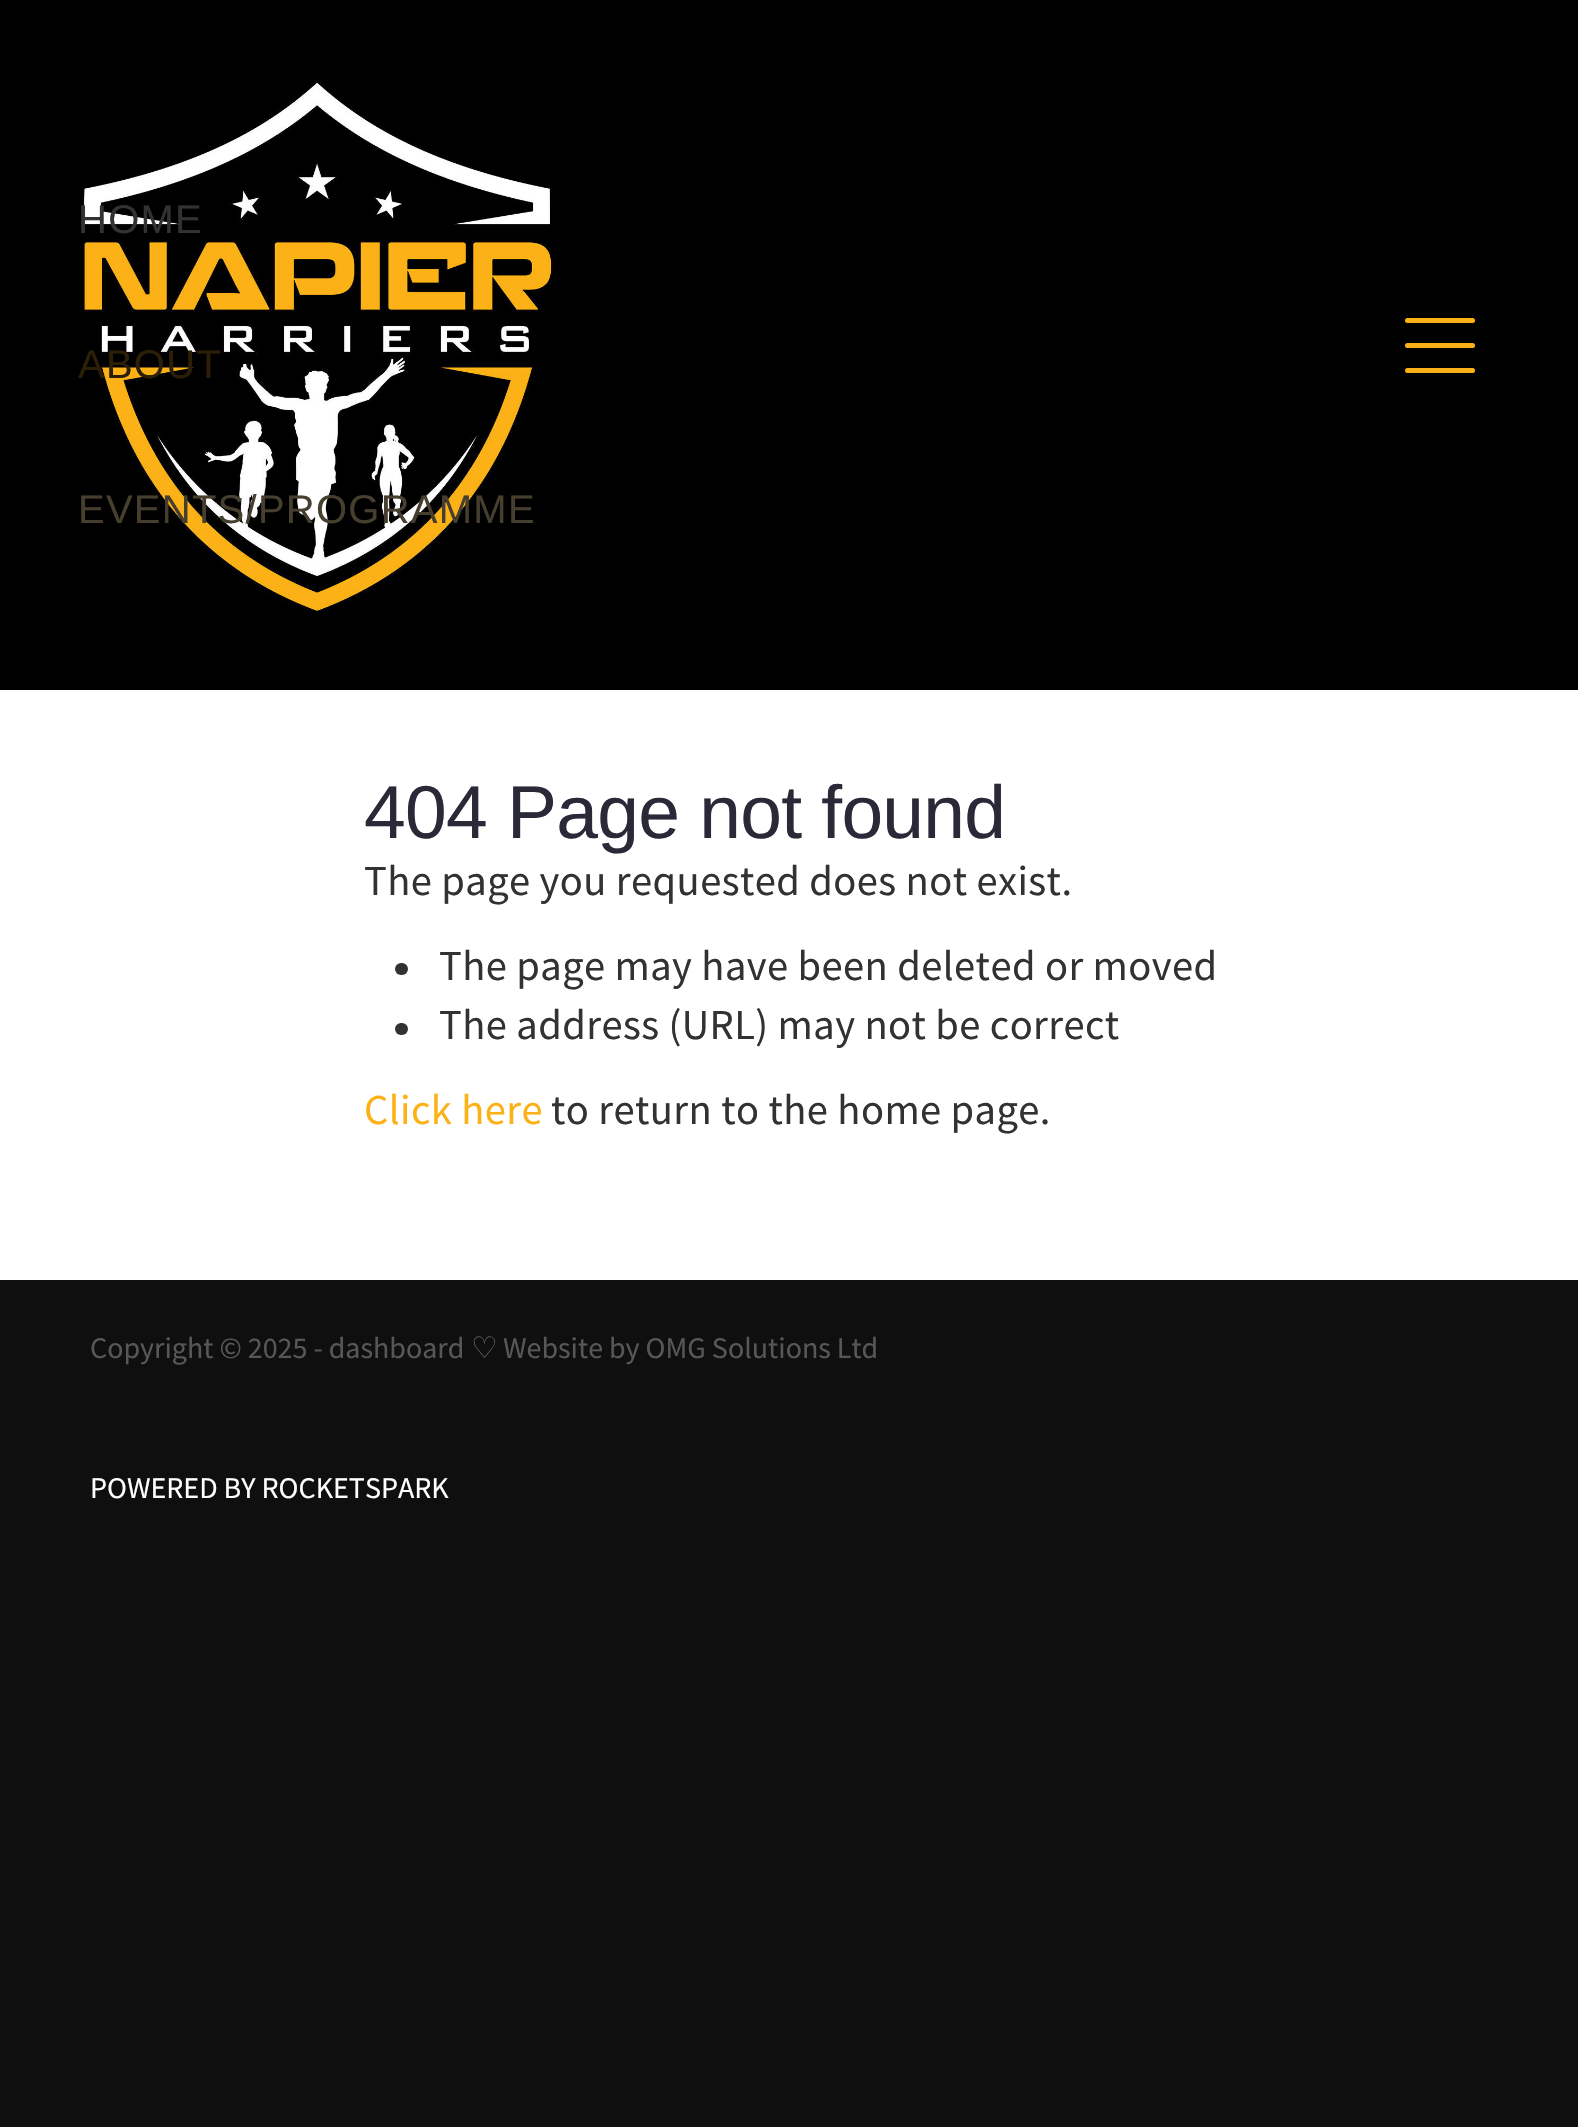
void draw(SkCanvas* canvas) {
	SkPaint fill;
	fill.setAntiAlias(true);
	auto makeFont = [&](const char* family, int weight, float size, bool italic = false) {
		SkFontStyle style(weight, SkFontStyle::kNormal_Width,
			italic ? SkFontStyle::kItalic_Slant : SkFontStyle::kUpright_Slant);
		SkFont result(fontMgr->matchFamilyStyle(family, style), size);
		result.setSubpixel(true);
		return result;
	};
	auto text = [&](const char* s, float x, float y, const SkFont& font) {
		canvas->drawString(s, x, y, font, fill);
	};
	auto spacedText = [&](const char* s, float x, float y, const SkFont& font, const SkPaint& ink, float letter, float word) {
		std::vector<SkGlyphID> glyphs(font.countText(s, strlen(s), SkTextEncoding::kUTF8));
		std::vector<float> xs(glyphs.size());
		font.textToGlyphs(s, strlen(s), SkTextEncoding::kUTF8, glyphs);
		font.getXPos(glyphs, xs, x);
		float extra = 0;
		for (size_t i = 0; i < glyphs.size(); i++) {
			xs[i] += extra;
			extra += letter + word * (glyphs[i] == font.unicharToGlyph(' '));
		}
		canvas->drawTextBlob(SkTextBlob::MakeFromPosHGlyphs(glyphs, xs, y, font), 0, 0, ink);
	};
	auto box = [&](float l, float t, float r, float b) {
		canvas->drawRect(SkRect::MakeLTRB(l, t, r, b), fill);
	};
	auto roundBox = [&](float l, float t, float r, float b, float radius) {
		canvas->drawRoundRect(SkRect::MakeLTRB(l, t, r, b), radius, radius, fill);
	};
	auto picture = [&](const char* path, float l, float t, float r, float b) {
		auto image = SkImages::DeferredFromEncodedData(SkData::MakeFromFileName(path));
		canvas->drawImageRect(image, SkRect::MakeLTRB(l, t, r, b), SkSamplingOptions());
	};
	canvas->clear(0xFFFFFFFF);
	fill.setColor(0xFF000000);
	box(0, 0, 1578, 690);
	picture("image0.png", 82, 81, 555, 613);
	fill.setColor(0xFFFCB216);
	roundBox(1405, 343, 1475, 348, 2.5f);
	roundBox(1405, 318, 1475, 323, 2.5f);
	roundBox(1405, 368, 1475, 373, 2.5f);
	fill.setColor(0xFF323232);
	roundBox(395, 963, 408, 975, 6);
	roundBox(395, 1023, 408, 1035, 6);
	fill.setColor(0xFF0F0F0F);
	canvas->drawPath(SkPathBuilder().moveTo(-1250, 1280).lineTo(-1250, 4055).lineTo(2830, 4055).lineTo(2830, 1280).lineTo(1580, 1280).lineTo(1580, 1555).lineTo(0, 1555).lineTo(0, 1280).close().detach(), fill);
	box(0, 1280, 1578, 1555);
	auto font1 = makeFont("Liberation Sans", 400, 40);
	fill.setColor(0xFF323232);
	spacedText("HOME", 78, 233, font1, fill, 1.25f, 0);
	fill.setColor(0xFF2C1F06);
	spacedText("ABOUT", 78, 378, font1, fill, 1.25f, 0);
	fill.setColor(0xFF463E2E);
	spacedText("EVENTS/PROGRAMME", 78, 523, font1, fill, 1.25f, 0);
	auto font2 = makeFont("Liberation Sans", 400, 75);
	fill.setColor(0xFF2A2938);
	spacedText("404 Page not found", 364, 838, font2, fill, -0.75f, 0);
	auto font3 = makeFont("Source Sans Pro", 400, 42.5f);
	fill.setColor(0xFF323232);
	spacedText("The page you requested does not exist.", 364, 895, font3, fill, 0.45f, 0);
	spacedText("The page may have been deleted or moved", 439, 980, font3, fill, 0.45f, 0);
	spacedText("The address (URL) may not be correct", 439, 1039, font3, fill, 0.45f, 0);
	fill.setColor(0xFFFCB216);
	spacedText("Click here", 364, 1124, font3, fill, 0.45f, 0);
	fill.setColor(0xFF323232);
	spacedText("to return to the home page.", 551, 1124, font3, fill, 0.45f, 0);
	auto font4 = makeFont("Source Sans Pro", 400, 30);
	fill.setColor(0xFF575757);
	text("Copyright © 2025 - dashboard", 90, 1358, font4);
	auto font5 = makeFont("DejaVu Sans", 400, 30);
	text("♡", 471, 1358, font5);
	text("Website by OMG Solutions Ltd", 503, 1358, font4);
	fill.setColor(0xFFFFFFFF);
	text("POWERED BY ROCKETSPARK", 90, 1498, font4);
}
